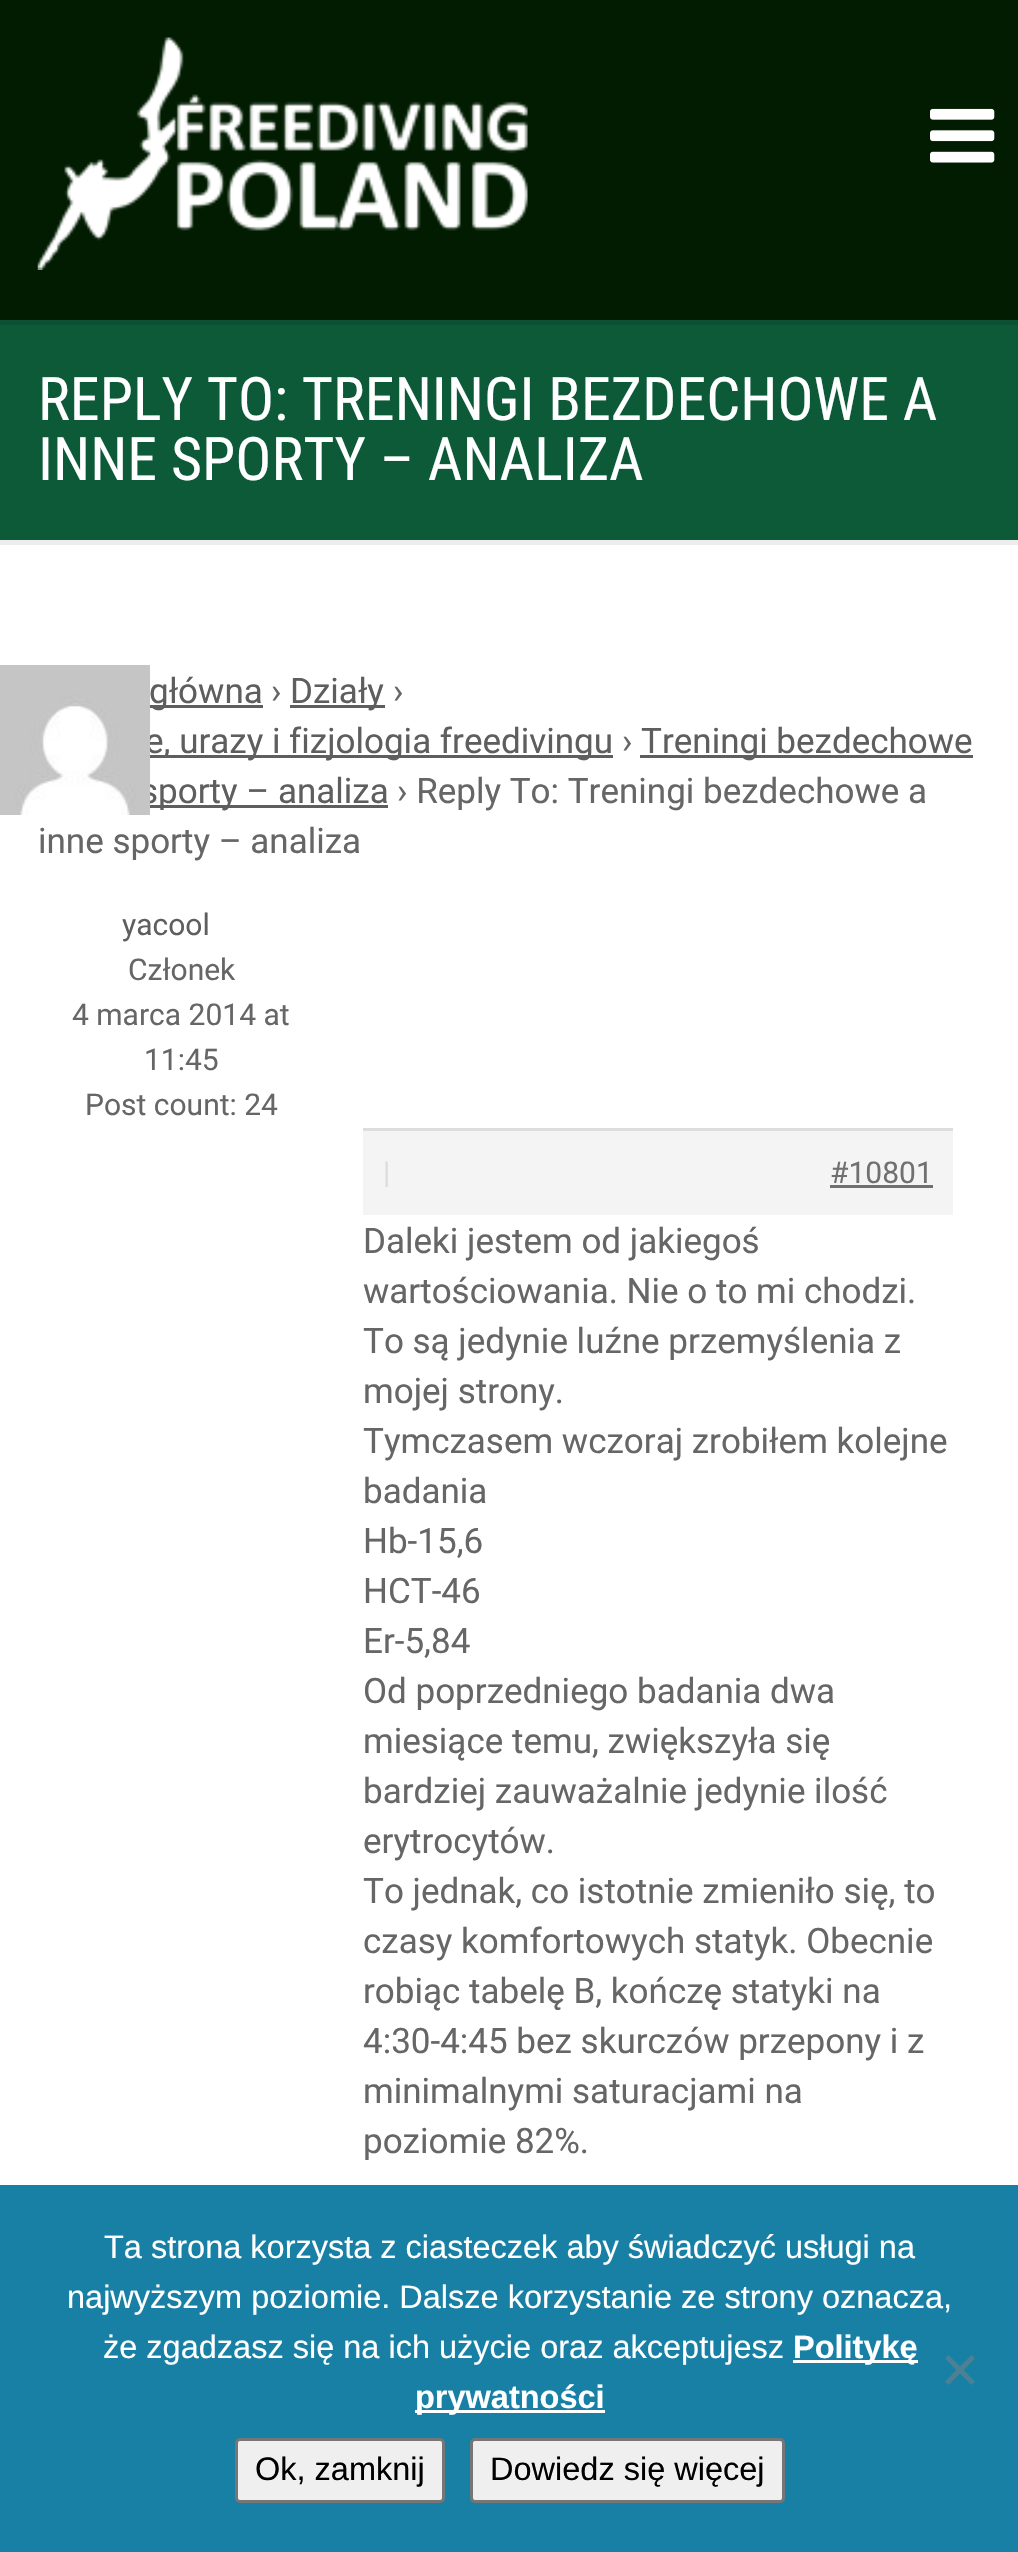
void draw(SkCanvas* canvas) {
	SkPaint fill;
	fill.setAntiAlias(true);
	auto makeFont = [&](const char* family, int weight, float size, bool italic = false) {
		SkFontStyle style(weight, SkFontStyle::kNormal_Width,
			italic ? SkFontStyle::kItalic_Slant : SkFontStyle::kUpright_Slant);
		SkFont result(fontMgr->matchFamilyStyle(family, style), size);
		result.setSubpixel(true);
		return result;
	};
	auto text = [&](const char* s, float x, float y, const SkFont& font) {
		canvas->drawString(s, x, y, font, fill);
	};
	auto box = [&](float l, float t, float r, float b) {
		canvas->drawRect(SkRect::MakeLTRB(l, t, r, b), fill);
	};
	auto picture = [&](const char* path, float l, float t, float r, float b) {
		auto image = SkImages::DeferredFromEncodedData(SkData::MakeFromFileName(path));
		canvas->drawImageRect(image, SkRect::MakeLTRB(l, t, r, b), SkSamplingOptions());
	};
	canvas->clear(0xFFFFFFFF);
	fill.setColor(0xFF0C5133);
	box(0, 320, 1018, 325);
	fill.setColor(0xFF011C01);
	box(0, 0, 1018, 320);
	picture("image0.png", 37, 37, 528, 270);
	picture("image1.png", 930, 108, 995, 163);
	fill.setColor(0xFFEDEDED);
	box(0, 540, 1018, 545);
	fill.setColor(0xFF0D5A39);
	box(0, 325, 1018, 540);
	fill.setColor(0xFF5E5E5E);
	box(150, 705, 263, 708);
	box(290, 705, 385, 708);
	box(150, 755, 613, 758);
	box(640, 755, 973, 758);
	box(150, 805, 388, 808);
	fill.setColor(0xFFF4F4F4);
	box(363, 1131, 953, 1215);
	fill.setColor(0xFFDDDDDD);
	box(363, 1128, 953, 1131);
	fill.setColor(0xFF707070);
	box(830, 1185, 933, 1188);
	fill.setColor(0xFF1880A5);
	box(0, 2185, 1018, 2552);
	fill.setColor(0xFFFFFFFF);
	box(793, 2360, 918, 2363);
	box(415, 2410, 605, 2413);
	fill.setColor(0xFF4C8093);
	canvas->drawPath(SkPathBuilder().moveTo(971.5f, 2355).lineTo(975, 2358.5f).lineTo(948.5f, 2385).lineTo(945, 2381.5f).close().detach(), fill);
	canvas->drawPath(SkPathBuilder().moveTo(945, 2358.5f).lineTo(948.5f, 2355).lineTo(975, 2381.5f).lineTo(971.5f, 2385).close().detach(), fill);
	fill.setColor(0xFFEFEFEF);
	canvas->drawRoundRect(SkRect::MakeLTRB(236.5f, 2439.5f, 443.5f, 2501.5f), 3.5f, 3.5f, fill);
	fill.setStyle(SkPaint::kStroke_Style);
	fill.setStrokeWidth(3);
	fill.setColor(0xFF767676);
	canvas->drawRoundRect(SkRect::MakeLTRB(236.5f, 2439.5f, 443.5f, 2501.5f), 3.5f, 3.5f, fill);
	fill.setStyle(SkPaint::kFill_Style);
	fill.setColor(0xFFEFEFEF);
	canvas->drawRoundRect(SkRect::MakeLTRB(471.5f, 2439.5f, 783.5f, 2501.5f), 3.5f, 3.5f, fill);
	fill.setStyle(SkPaint::kStroke_Style);
	fill.setColor(0xFF767676);
	canvas->drawRoundRect(SkRect::MakeLTRB(471.5f, 2439.5f, 783.5f, 2501.5f), 3.5f, 3.5f, fill);
	auto font1 = makeFont("Roboto Condensed", 400, 60);
	fill.setStyle(SkPaint::kFill_Style);
	fill.setColor(0xFFFFFFFF);
	text("REPLY TO: TRENINGI BEZDECHOWE A", 38, 420, font1);
	text("INNE SPORTY – ANALIZA", 38, 480, font1);
	auto font2 = makeFont("Roboto", 400, 35);
	fill.setColor(0xFF5E5E5E);
	text("główna", 149, 703, font2);
	fill.setColor(0xFF666666);
	text("›", 271, 703, font2);
	fill.setColor(0xFF5E5E5E);
	text("Działy", 290, 703, font2);
	fill.setColor(0xFF666666);
	text("›", 393, 703, font2);
	fill.setColor(0xFF5E5E5E);
	text("e, urazy i fizjologia freedivingu", 145, 753, font2);
	fill.setColor(0xFF666666);
	text("›", 622, 753, font2);
	fill.setColor(0xFF5E5E5E);
	text("Treningi bezdechowe", 641, 753, font2);
	text("sporty – analiza", 140, 803, font2);
	fill.setColor(0xFF666666);
	text("› Reply To: Treningi bezdechowe a", 397, 803, font2);
	text("inne sporty – analiza", 38, 853, font2);
	picture("image2.png", 0, 665, 150, 815);
	auto font3 = makeFont("Roboto", 400, 30);
	fill.setColor(0xFF5E5E5E);
	text("yacool", 122, 935, font3);
	fill.setColor(0xFF666666);
	text("Członek", 128, 980, font3);
	text("4 marca 2014 at", 72, 1025, font3);
	text("11:45", 144, 1070, font3);
	text("Post count: 24", 85, 1115, font3);
	fill.setColor(0xFFDDDDDD);
	text("|", 383, 1183, font3);
	fill.setColor(0xFF707070);
	text("#10801", 830, 1183, font3);
	fill.setColor(0xFF666666);
	text("Daleki jestem od jakiegoś", 363, 1253, font2);
	text("wartościowania. Nie o to mi chodzi.", 363, 1303, font2);
	text("To są jedynie luźne przemyślenia z", 363, 1353, font2);
	text("mojej strony.", 363, 1403, font2);
	text("Tymczasem wczoraj zrobiłem kolejne", 363, 1453, font2);
	text("badania", 363, 1503, font2);
	text("Hb-15,6", 363, 1553, font2);
	text("HCT-46", 363, 1603, font2);
	text("Er-5,84", 363, 1653, font2);
	text("Od poprzedniego badania dwa", 363, 1703, font2);
	text("miesiące temu, zwiększyła się", 363, 1753, font2);
	text("bardziej zauważalnie jedynie ilość", 363, 1803, font2);
	text("erytrocytów.", 363, 1853, font2);
	text("To jednak, co istotnie zmieniło się, to", 363, 1903, font2);
	text("czasy komfortowych statyk. Obecnie", 363, 1953, font2);
	text("robiąc tabelę B, kończę statyki na", 363, 2003, font2);
	text("4:30-4:45 bez skurczów przepony i z", 363, 2053, font2);
	text("minimalnymi saturacjami na", 363, 2103, font2);
	text("poziomie 82%.", 363, 2153, font2);
	auto font4 = makeFont("Liberation Sans", 400, 32.5f);
	fill.setColor(0xFFFFFFFF);
	text("Ta strona korzysta z ciasteczek aby świadczyć usługi na", 104, 2258, font4);
	text("najwyższym poziomie. Dalsze korzystanie ze strony oznacza,", 67, 2308, font4);
	text("że zgadzasz się na ich użycie oraz akceptujesz", 103, 2358, font4);
	auto font5 = makeFont("Liberation Sans", 700, 32.5f);
	text("Politykę", 793, 2358, font5);
	text("prywatności", 415, 2408, font5);
	fill.setColor(0xFF000000);
	text("Ok, zamknij", 255, 2480, font4);
	text("Dowiedz się więcej", 490, 2480, font4);
}
